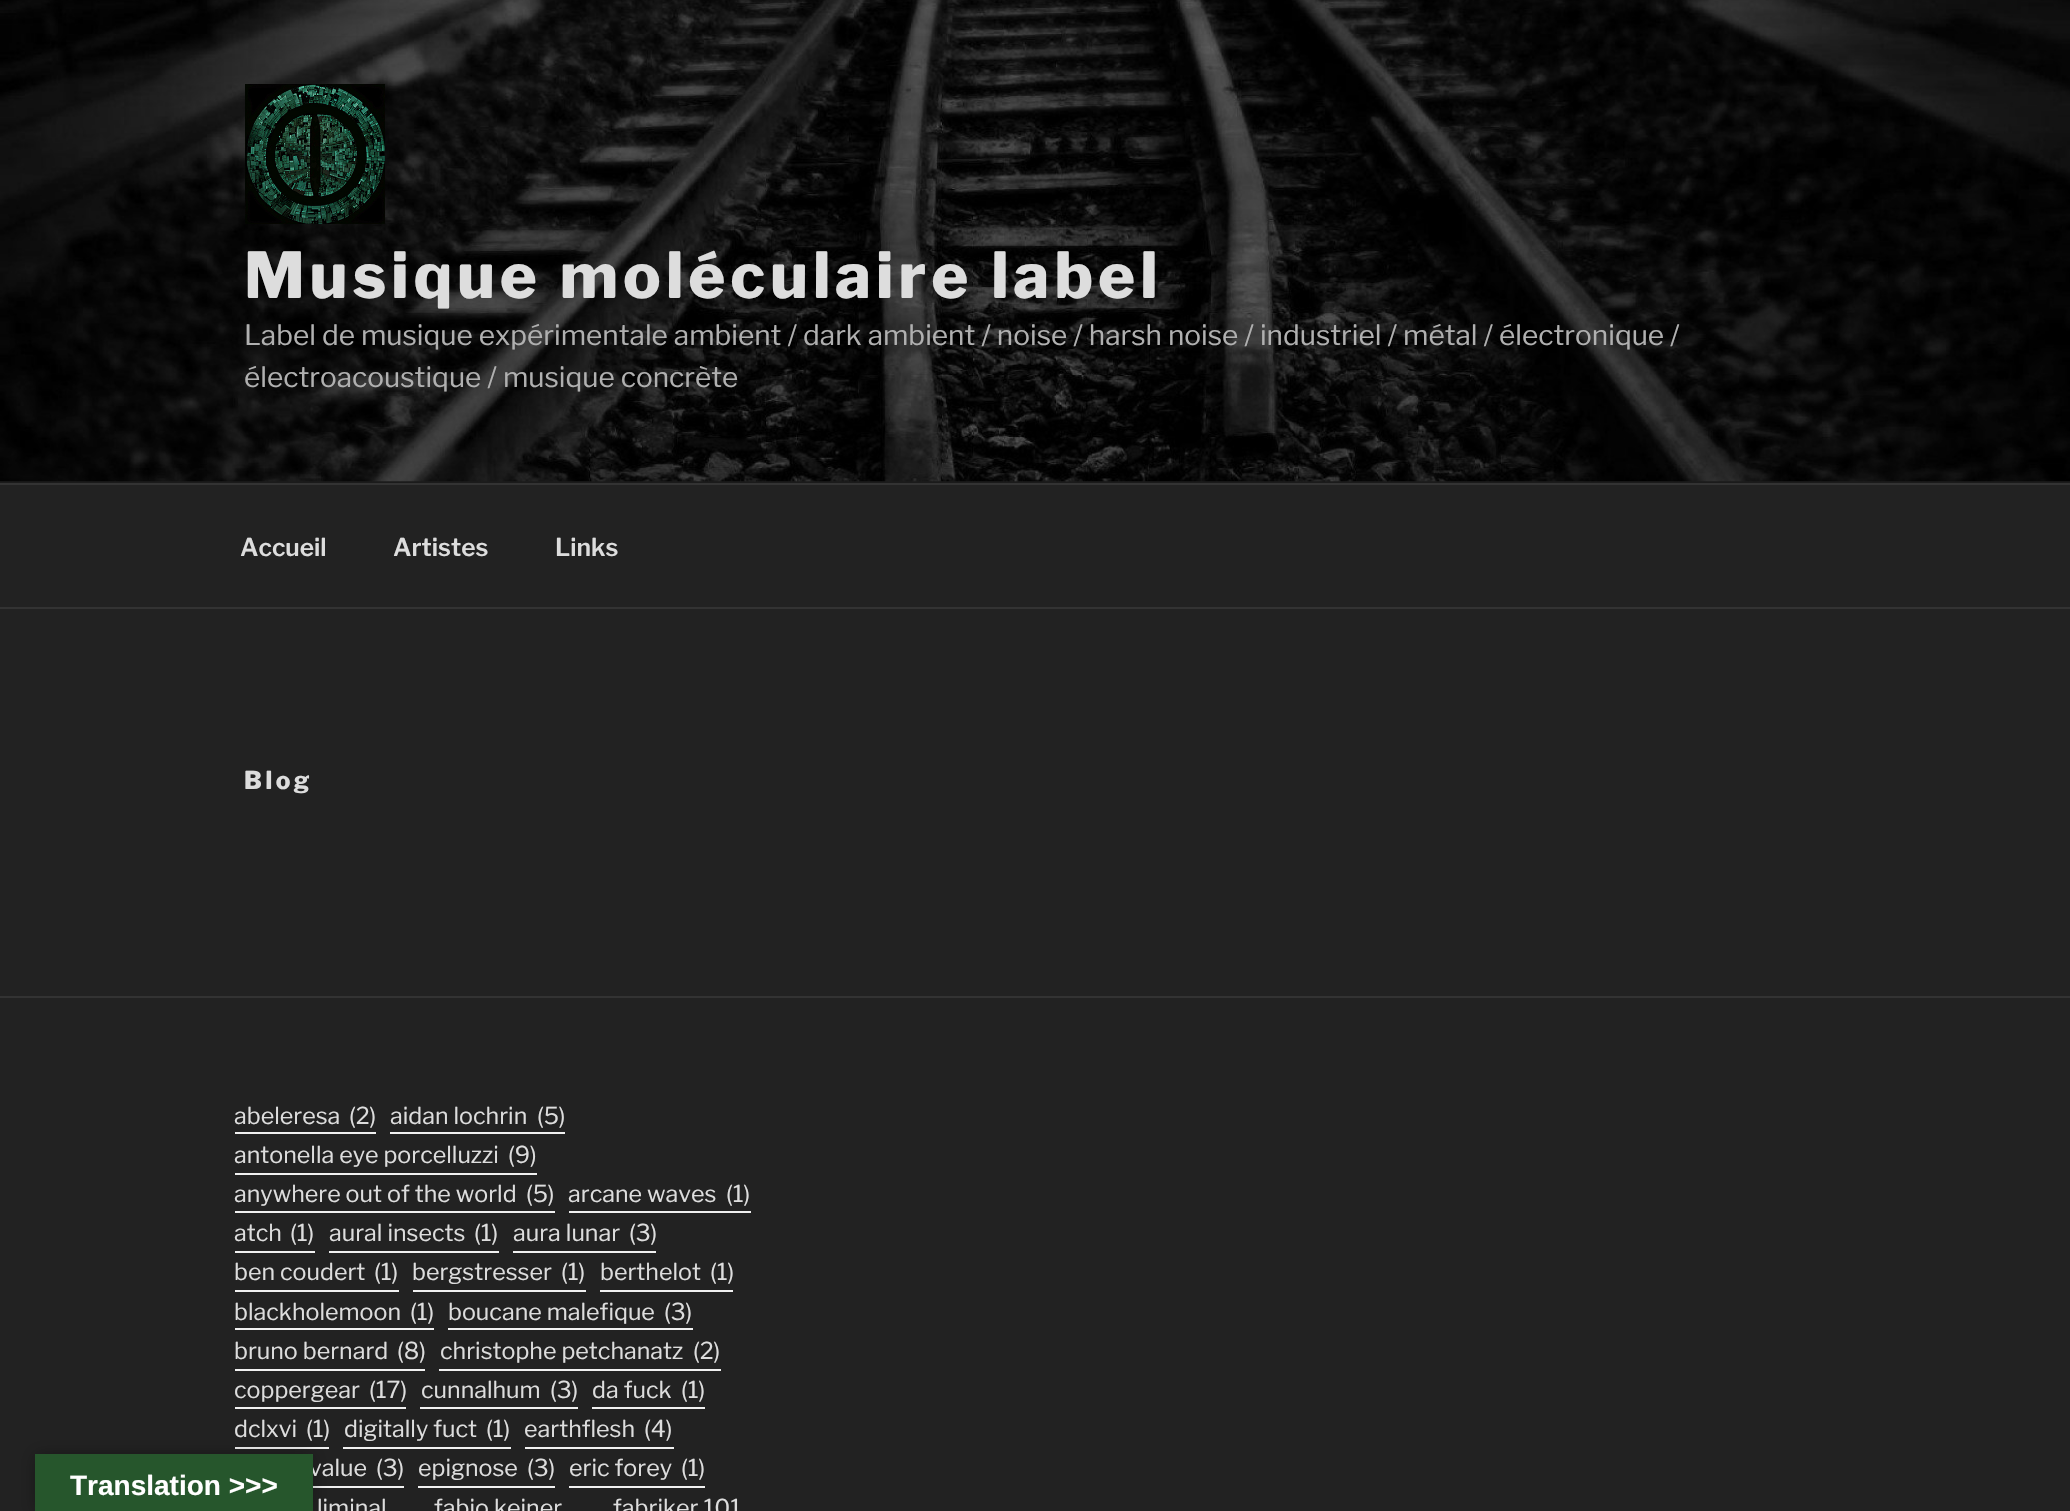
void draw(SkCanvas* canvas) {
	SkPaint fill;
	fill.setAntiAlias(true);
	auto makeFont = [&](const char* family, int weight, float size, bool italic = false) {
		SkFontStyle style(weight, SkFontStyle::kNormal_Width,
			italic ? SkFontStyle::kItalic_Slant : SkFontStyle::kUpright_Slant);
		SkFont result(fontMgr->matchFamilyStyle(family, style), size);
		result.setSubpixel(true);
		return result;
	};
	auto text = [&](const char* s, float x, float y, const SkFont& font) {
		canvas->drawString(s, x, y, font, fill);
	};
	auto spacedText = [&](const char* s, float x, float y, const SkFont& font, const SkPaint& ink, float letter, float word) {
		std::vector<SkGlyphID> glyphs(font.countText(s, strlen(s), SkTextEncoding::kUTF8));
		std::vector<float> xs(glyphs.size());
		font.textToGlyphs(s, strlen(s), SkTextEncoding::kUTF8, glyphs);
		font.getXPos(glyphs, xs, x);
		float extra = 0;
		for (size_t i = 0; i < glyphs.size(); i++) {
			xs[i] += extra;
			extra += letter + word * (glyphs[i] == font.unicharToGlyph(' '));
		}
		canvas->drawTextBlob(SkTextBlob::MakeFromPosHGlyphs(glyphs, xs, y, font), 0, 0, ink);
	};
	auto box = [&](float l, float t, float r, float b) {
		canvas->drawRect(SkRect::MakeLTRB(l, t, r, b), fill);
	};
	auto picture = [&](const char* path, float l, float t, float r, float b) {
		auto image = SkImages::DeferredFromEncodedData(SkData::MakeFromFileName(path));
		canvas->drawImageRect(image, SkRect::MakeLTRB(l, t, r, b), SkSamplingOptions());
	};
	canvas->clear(0xFF222222);
	fill.setColor(0xFFF0F0F0);
	box(235, 1447, 329, 1449);
	box(313, 1486, 404, 1488);
	fill.setColor(0x4D000000);
	fill.setMaskFilter(SkMaskFilter::MakeBlur(kNormal_SkBlurStyle, 8));
	canvas->drawRect(SkRect::MakeLTRB(35, 1454, 313, 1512), fill);
	fill.setMaskFilter(nullptr);
	fill.setColor(0xFF262626);
	box(0, 481, 2070, 483);
	picture("image0.png", 0, 0, 2070, 482);
	{
		const SkColor colors[] = {0x00000000, 0x4D000000, 0x4D000000};
		const float stops[] = {0, 0.75f, 1};
		const SkPoint ends[] = {{1035, 0}, {1035, 483}};
		fill.setShader(SkGradientShader::MakeLinear(ends, colors, stops, 3, SkTileMode::kClamp));
		fill.setAlpha(255);
	}
	box(0, 36, 2070, 483);
	picture("image1.png", 245, 84, 385, 224);
	fill.setShader(nullptr);
	fill.setColor(0xFF333333);
	box(0, 483, 2070, 485);
	box(0, 607, 2070, 609);
	box(0, 996, 2070, 998);
	fill.setColor(0xFFF0F0F0);
	box(235, 1132, 376, 1134);
	box(390, 1132, 565, 1134);
	box(235, 1173, 537, 1175);
	box(235, 1211, 555, 1213);
	box(569, 1211, 751, 1213);
	box(235, 1251, 315, 1253);
	box(329, 1251, 499, 1253);
	box(513, 1251, 656, 1253);
	box(235, 1290, 399, 1292);
	box(413, 1290, 586, 1292);
	box(600, 1290, 733, 1292);
	box(235, 1328, 434, 1330);
	box(448, 1328, 693, 1330);
	box(235, 1369, 425, 1371);
	box(439, 1369, 721, 1371);
	box(235, 1407, 406, 1409);
	box(420, 1407, 578, 1409);
	box(592, 1407, 705, 1409);
	box(343, 1447, 511, 1449);
	box(525, 1447, 674, 1449);
	box(418, 1486, 555, 1488);
	box(569, 1486, 705, 1488);
	auto font1 = makeFont("Libre Franklin", 100, 63);
	fill.setColor(0xFFDDDDDD);
	spacedText("Musique moléculaire label", 244, 298, font1, fill, 5.05f, 0);
	auto font2 = makeFont("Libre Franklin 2", 100, 28);
	fill.setColor(0xFFB0B0B0);
	text("Label de musique expérimentale ambient / dark ambient / noise / harsh noise / industriel / métal / électronique /", 244, 345, font2);
	text("électroacoustique / musique concrète", 244, 387, font2);
	auto font3 = makeFont("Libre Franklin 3", 100, 24.5f);
	fill.setColor(0xFFDDDDDD);
	text("Accueil", 240, 556, font3);
	text("Artistes", 393, 556, font3);
	text("Links", 555, 556, font3);
	auto font4 = makeFont("Libre Franklin", 100, 24.5f);
	spacedText("Blog", 244, 789, font4, fill, 3.5f, 0);
	auto font5 = makeFont("Libre Franklin 2", 100, 23.25f);
	text("abeleresa", 234, 1124, font5);
	text("(2)", 349, 1124, font5);
	text("aidan lochrin", 390, 1124, font5);
	text("(5)", 537, 1124, font5);
	text("antonella eye porcelluzzi", 234, 1163, font5);
	text("(9)", 508, 1163, font5);
	text("anywhere out of the world", 234, 1202, font5);
	text("(5)", 526, 1202, font5);
	text("arcane waves", 568, 1202, font5);
	text("(1)", 726, 1202, font5);
	text("atch", 234, 1241, font5);
	text("(1)", 290, 1241, font5);
	text("aural insects", 329, 1241, font5);
	text("(1)", 474, 1241, font5);
	text("aura lunar", 513, 1241, font5);
	text("(3)", 629, 1241, font5);
	text("ben coudert", 234, 1280, font5);
	text("(1)", 374, 1280, font5);
	text("bergstresser", 412, 1280, font5);
	text("(1)", 561, 1280, font5);
	text("berthelot", 600, 1280, font5);
	text("(1)", 710, 1280, font5);
	text("blackholemoon", 234, 1320, font5);
	text("(1)", 410, 1320, font5);
	text("boucane malefique", 448, 1320, font5);
	text("(3)", 664, 1320, font5);
	text("bruno bernard", 234, 1359, font5);
	text("(8)", 397, 1359, font5);
	text("christophe petchanatz", 440, 1359, font5);
	text("(2)", 693, 1359, font5);
	text("coppergear", 234, 1398, font5);
	text("(17)", 369, 1398, font5);
	text("cunnalhum", 421, 1398, font5);
	text("(3)", 550, 1398, font5);
	text("da fuck", 592, 1398, font5);
	text("(1)", 681, 1398, font5);
	text("dclxvi", 234, 1437, font5);
	text("(1)", 306, 1437, font5);
	text("digitally fuct", 344, 1437, font5);
	text("(1)", 486, 1437, font5);
	text("earthflesh", 524, 1437, font5);
	text("(4)", 644, 1437, font5);
	text("value", 309, 1476, font5);
	fill.setColor(0xFF26562C);
	box(35, 1454, 313, 1511);
	auto font6 = makeFont("Liberation Sans", 700, 28);
	fill.setColor(0xFFFFFFFF);
	text("Translation >>>", 70, 1495, font6);
	fill.setColor(0xFFDDDDDD);
	text("(3)", 376, 1476, font5);
	text("epignose", 418, 1476, font5);
	text("(3)", 527, 1476, font5);
	text("eric forey", 569, 1476, font5);
	text("(1)", 681, 1476, font5);
	text("liminal", 317, 1516, font5);
	text("fabio keiner", 434, 1516, font5);
	text("fabriker 101", 613, 1516, font5);
}
